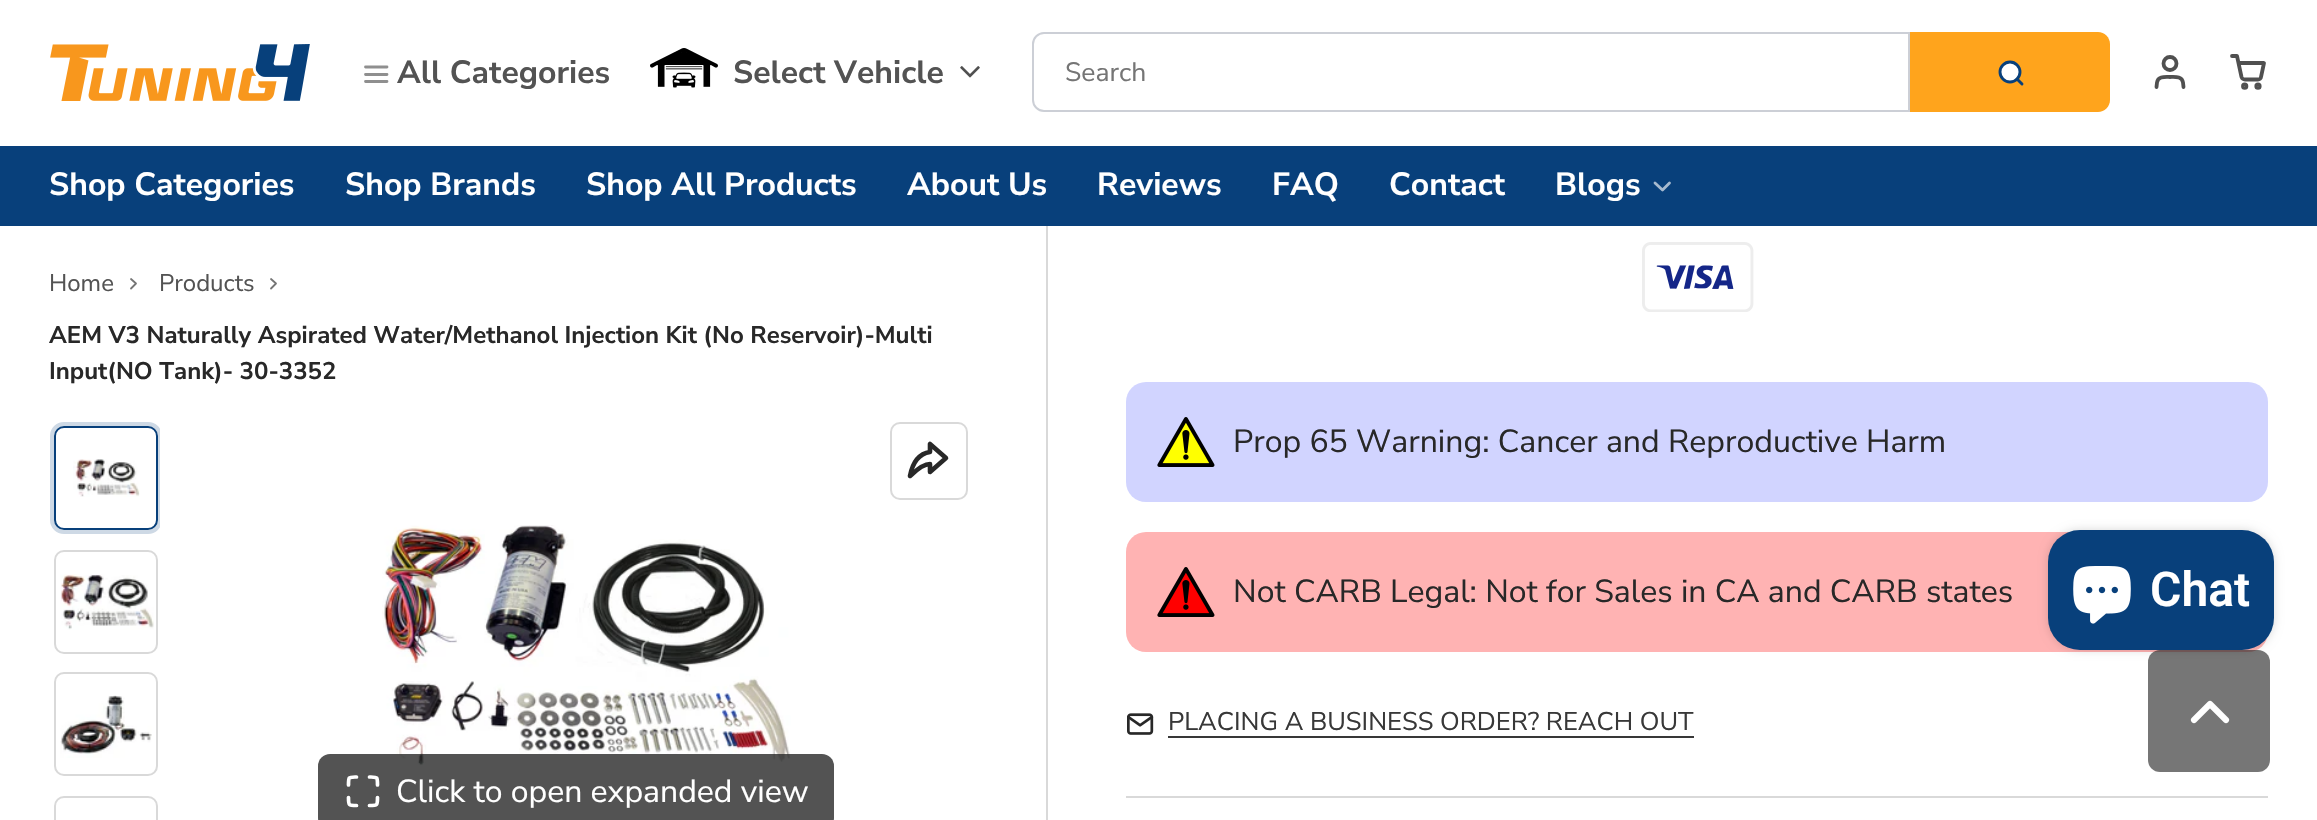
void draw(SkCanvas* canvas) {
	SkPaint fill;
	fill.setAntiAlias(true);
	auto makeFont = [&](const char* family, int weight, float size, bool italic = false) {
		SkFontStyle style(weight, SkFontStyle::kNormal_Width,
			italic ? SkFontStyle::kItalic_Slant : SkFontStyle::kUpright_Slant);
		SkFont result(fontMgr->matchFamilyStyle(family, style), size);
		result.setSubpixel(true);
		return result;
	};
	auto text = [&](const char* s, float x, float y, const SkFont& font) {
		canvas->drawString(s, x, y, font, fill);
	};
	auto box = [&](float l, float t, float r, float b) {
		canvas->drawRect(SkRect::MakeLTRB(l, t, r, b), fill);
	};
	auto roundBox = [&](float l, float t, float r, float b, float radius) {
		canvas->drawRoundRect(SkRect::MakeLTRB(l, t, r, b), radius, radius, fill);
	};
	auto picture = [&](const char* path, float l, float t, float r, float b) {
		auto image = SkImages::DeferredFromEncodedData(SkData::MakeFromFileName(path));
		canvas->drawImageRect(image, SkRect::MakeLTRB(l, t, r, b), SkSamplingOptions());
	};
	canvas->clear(0xFFFFFFFF);
	picture("image0.png", 50, 44, 310, 101);
	fill.setStyle(SkPaint::kStroke_Style);
	fill.setStrokeWidth(2.8f);
	fill.setStrokeCap(SkPaint::kRound_Cap);
	fill.setStrokeJoin(SkPaint::kRound_Join);
	fill.setColor(0xFF8F8F8F);
	canvas->drawPath(SkPathBuilder().moveTo(365.5f, 74.5f).lineTo(387, 74.5f).moveTo(365.5f, 67).lineTo(387, 67).moveTo(365.5f, 81.5f).lineTo(387, 81.5f).detach(), fill);
	picture("image1.png", 650, 48, 718, 88);
	picture("image2.png", 960, 66, 980, 78);
	fill.setStrokeWidth(2);
	fill.setStrokeCap(SkPaint::kButt_Cap);
	fill.setStrokeJoin(SkPaint::kMiter_Join);
	fill.setColor(0xFFCCCFD6);
	canvas->drawPath(SkPathBuilder().moveTo(1044, 33).lineTo(1909, 33).lineTo(1909, 111).lineTo(1044, 111).cubicTo(1038, 111, 1033, 106, 1033, 100).lineTo(1033, 44).cubicTo(1033, 38, 1038, 33, 1044, 33).close().detach(), fill);
	fill.setStyle(SkPaint::kFill_Style);
	fill.setColor(0xFFFFA41C);
	canvas->drawPath(SkPathBuilder().moveTo(1910, 32).lineTo(2098, 32).cubicTo(2104.5f, 32, 2110, 37.5f, 2110, 44).lineTo(2110, 100).cubicTo(2110, 106.5f, 2104.5f, 112, 2098, 112).lineTo(1910, 112).close().detach(), fill);
	fill.setColor(0xFFFFFFFF);
	canvas->drawCircle(2010, 72, 10, fill);
	fill.setStyle(SkPaint::kStroke_Style);
	fill.setStrokeWidth(2.9f);
	fill.setColor(0xFF08407B);
	canvas->drawCircle(2010, 72, 10, fill);
	fill.setStrokeCap(SkPaint::kRound_Cap);
	fill.setStrokeJoin(SkPaint::kRound_Join);
	canvas->drawPath(SkPathBuilder().moveTo(2022, 84).lineTo(2017, 79).detach(), fill);
	fill.setStrokeWidth(3.8f);
	fill.setColor(0xFF505050);
	canvas->drawPath(SkPathBuilder().moveTo(2183.5f, 87).lineTo(2183, 82.5f).cubicTo(2182, 76, 2175, 77, 2170, 77).cubicTo(2165, 77, 2158, 76, 2157, 82.5f).lineTo(2156.5f, 87).detach(), fill);
	fill.setStrokeCap(SkPaint::kButt_Cap);
	fill.setStrokeJoin(SkPaint::kMiter_Join);
	canvas->drawCircle(2170, 63.5f, 6.5f, fill);
	canvas->drawCircle(2244.7f, 86.2f, 1.7f, fill);
	canvas->drawCircle(2258, 86.2f, 1.7f, fill);
	fill.setStrokeCap(SkPaint::kRound_Cap);
	fill.setStrokeJoin(SkPaint::kRound_Join);
	canvas->drawPath(SkPathBuilder().moveTo(2232, 56).lineTo(2237, 56).lineTo(2241.5f, 77).cubicTo(2242, 78.5f, 2243.5f, 79.5f, 2245, 79.5f).lineTo(2258, 79.5f).cubicTo(2259.5f, 79.5f, 2261, 78.5f, 2261, 77).lineTo(2264, 63).lineTo(2240, 63).detach(), fill);
	fill.setStyle(SkPaint::kFill_Style);
	fill.setColor(0xFF08407B);
	box(0, 146, 2317, 226);
	fill.setStyle(SkPaint::kStroke_Style);
	fill.setStrokeWidth(2.8f);
	fill.setColor(0xFFA6BACF);
	canvas->drawPath(SkPathBuilder().moveTo(1655, 183).lineTo(1662.5f, 190).lineTo(1669.5f, 183).detach(), fill);
	fill.setStyle(SkPaint::kFill_Style);
	fill.setColor(0xFFD9D9D9);
	box(1046, 226, 1048, 820);
	fill.setStyle(SkPaint::kStroke_Style);
	fill.setStrokeWidth(1.8f);
	fill.setColor(0xFF757575);
	canvas->drawPath(SkPathBuilder().moveTo(131, 288.5f).lineTo(136, 283.5f).lineTo(131, 279).detach(), fill);
	canvas->drawPath(SkPathBuilder().moveTo(271, 288.5f).lineTo(276, 283.5f).lineTo(271, 279).detach(), fill);
	canvas->save();
	canvas->clipRect(SkRect::MakeLTRB(50, 422, 160, 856));
	fill.setStrokeWidth(4);
	fill.setStrokeCap(SkPaint::kButt_Cap);
	fill.setStrokeJoin(SkPaint::kMiter_Join);
	fill.setColor(0xFFCED9E5);
	canvas->drawRoundRect(SkRect::MakeLTRB(52, 424, 160, 532), 12, 12, fill);
	canvas->restore();
	fill.setStrokeWidth(2);
	fill.setColor(0xFF08407B);
	canvas->drawRoundRect(SkRect::MakeLTRB(55, 427, 157, 529), 9, 9, fill);
	picture("image3.png", 73, 459, 140, 497);
	fill.setColor(0xFFD9D9D9);
	canvas->drawRoundRect(SkRect::MakeLTRB(55, 551, 157, 653), 9, 9, fill);
	picture("image4.png", 60, 574, 154, 630);
	canvas->drawRoundRect(SkRect::MakeLTRB(55, 673, 157, 775), 9, 9, fill);
	picture("image5.png", 60, 695, 152, 758);
	canvas->drawRoundRect(SkRect::MakeLTRB(55, 797, 157, 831), 9, 9, fill);
	canvas->drawRoundRect(SkRect::MakeLTRB(891, 423, 967, 499), 9, 9, fill);
	fill.setStrokeWidth(4.6f);
	fill.setStrokeCap(SkPaint::kRound_Cap);
	fill.setStrokeJoin(SkPaint::kRound_Join);
	fill.setColor(0xFF282828);
	canvas->drawPath(SkPathBuilder().moveTo(930, 444).lineTo(930, 452).cubicTo(917, 454, 912, 465.5f, 910, 476).cubicTo(910, 476.5f, 921, 464, 930, 464).lineTo(930, 472).lineTo(946, 458).close().detach(), fill);
	picture("image6.png", 382, 525, 791, 766);
	fill.setStyle(SkPaint::kFill_Style);
	fill.setColor(0xCC282828);
	roundBox(318, 754, 834, 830, 12);
	fill.setStyle(SkPaint::kStroke_Style);
	fill.setStrokeWidth(3.7f);
	fill.setColor(0xFFFFFFFF);
	canvas->drawPath(SkPathBuilder().moveTo(356.5f, 777).cubicTo(348.5f, 777, 348.5f, 776.5f, 348.5f, 785).moveTo(377.5f, 785).cubicTo(377.5f, 776.5f, 377.5f, 777, 369.5f, 777).moveTo(369.5f, 805.5f).cubicTo(377.5f, 805.5f, 377.5f, 805.5f, 377.5f, 797.5f).moveTo(348.5f, 797.5f).cubicTo(348.5f, 805.5f, 348.5f, 805.5f, 356.5f, 805.5f).detach(), fill);
	picture("image7.png", 1642, 242, 1754, 312);
	fill.setStyle(SkPaint::kFill_Style);
	fill.setColor(0xFFD1D4FF);
	roundBox(1126, 382, 2268, 502, 20);
	picture("image8.png", 1157, 417, 1215, 467);
	fill.setColor(0xFFFFB3B3);
	roundBox(1126, 532, 2268, 652, 20);
	picture("image9.png", 1157, 567, 1215, 617);
	picture("image10.png", 1127, 713, 1154, 735);
	fill.setColor(0xFF383838);
	box(1168, 736, 1694, 738);
	fill.setColor(0xFFD9D9D9);
	box(1126, 796, 2268, 798);
	fill.setColor(0xA3282828);
	roundBox(2148, 650, 2270, 772, 12);
	fill.setColor(0x26000000);
	fill.setMaskFilter(SkMaskFilter::MakeBlur(kNormal_SkBlurStyle, 5));
	canvas->drawRoundRect(SkRect::MakeLTRB(2048, 530, 2274, 650), 32, 32, fill);
	fill.setMaskFilter(nullptr);
	fill.setColor(0xFF08407B);
	roundBox(2048, 530, 2274, 650, 32);
	picture("image11.png", 2073, 566, 2131, 624);
	fill.setStyle(SkPaint::kStroke_Style);
	fill.setStrokeWidth(6.1f);
	fill.setColor(0xFFFFFFFF);
	canvas->drawPath(SkPathBuilder().moveTo(2226, 720).lineTo(2210, 704).lineTo(2194, 720).detach(), fill);
	auto font1 = makeFont("Nunito Sans", 700, 32);
	fill.setStyle(SkPaint::kFill_Style);
	fill.setColor(0xFF535353);
	text("All Categories", 397, 83, font1);
	text("Select Vehicle", 733, 83, font1);
	auto font2 = makeFont("Nunito Sans", 400, 26.5f);
	fill.setColor(0xFF757575);
	text("Search", 1065, 81, font2);
	fill.setColor(0xFFFFFFFF);
	text("Shop Categories", 49, 195, font1);
	text("Shop Brands", 345, 195, font1);
	text("Shop All Products", 586, 195, font1);
	text("About Us", 907, 195, font1);
	text("Reviews", 1097, 195, font1);
	text("FAQ", 1272, 195, font1);
	text("Contact", 1389, 195, font1);
	text("Blogs", 1555, 195, font1);
	auto font3 = makeFont("Nunito Sans", 400, 24);
	fill.setColor(0xFF535353);
	text("Home", 49, 291, font3);
	text("Products", 159, 291, font3);
	auto font4 = makeFont("Nunito Sans", 700, 24);
	fill.setColor(0xFF282828);
	text("AEM V3 Naturally Aspirated Water/Methanol Injection Kit (No Reservoir)-Multi", 49, 343, font4);
	text("Input(NO Tank)- 30-3352", 49, 379, font4);
	auto font5 = makeFont("Nunito Sans", 400, 32);
	fill.setColor(0xFFFFFFFF);
	text("Click to open expanded view", 396, 802, font5);
	fill.setColor(0xFF282828);
	text("Prop 65 Warning: Cancer and Reproductive Harm", 1233, 452, font5);
	text("Not CARB Legal: Not for Sales in CA and CARB states", 1233, 602, font5);
	auto font6 = makeFont("Nunito Sans", 400, 25.6f);
	fill.setColor(0xFF383838);
	text("PLACING A BUSINESS ORDER? REACH OUT", 1168, 730, font6);
	auto font7 = makeFont("Roboto", 600, 48);
	fill.setColor(0xFFFFFFFF);
	text("Chat", 2150, 606, font7);
}
